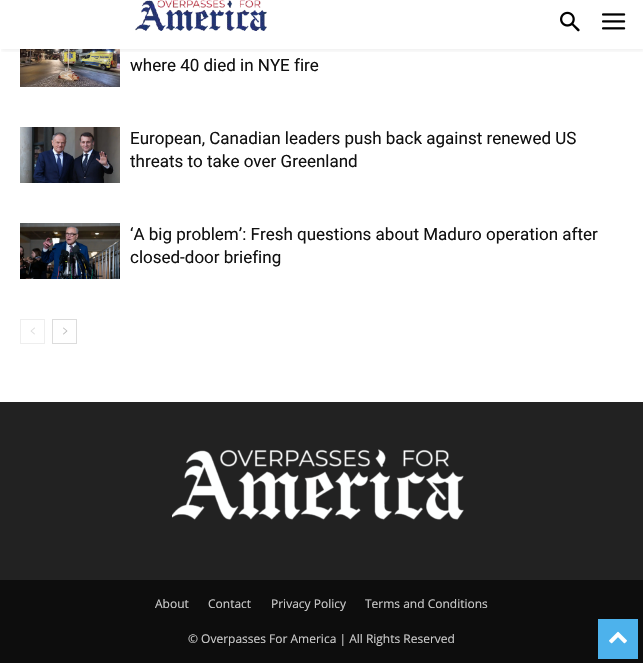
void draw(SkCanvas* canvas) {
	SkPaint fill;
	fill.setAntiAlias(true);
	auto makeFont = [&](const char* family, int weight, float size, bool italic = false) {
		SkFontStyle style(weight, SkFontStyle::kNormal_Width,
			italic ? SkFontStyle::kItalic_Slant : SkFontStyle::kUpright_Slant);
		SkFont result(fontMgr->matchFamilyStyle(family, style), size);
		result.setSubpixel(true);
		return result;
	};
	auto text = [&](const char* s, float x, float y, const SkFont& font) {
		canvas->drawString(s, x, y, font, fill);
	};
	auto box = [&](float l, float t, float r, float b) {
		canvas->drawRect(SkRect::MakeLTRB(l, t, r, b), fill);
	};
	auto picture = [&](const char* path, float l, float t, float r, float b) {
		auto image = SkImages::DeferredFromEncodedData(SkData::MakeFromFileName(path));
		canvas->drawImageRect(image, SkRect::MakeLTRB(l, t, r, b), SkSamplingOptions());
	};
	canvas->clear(0xFFFFFFFF);
	picture("image0.png", 135, 0, 267, 31);
	picture("image1.png", 560, 11, 580, 32);
	picture("image2.png", 602, 13, 626, 30);
	picture("image3.png", 20, 49, 120, 87);
	canvas->save();
	canvas->clipRect(SkRect::MakeLTRB(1, 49, 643, 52));
	fill.setColor(0x0F000000);
	fill.setMaskFilter(SkMaskFilter::MakeBlur(kNormal_SkBlurStyle, 2));
	canvas->drawRect(SkRect::MakeLTRB(1, 2, 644, 51), fill);
	fill.setMaskFilter(nullptr);
	canvas->restore();
	picture("image4.png", 20, 127, 120, 183);
	picture("image5.png", 20, 223, 120, 279);
	fill.setStyle(SkPaint::kStroke_Style);
	fill.setStrokeWidth(1);
	fill.setColor(0xFFEEEEEE);
	canvas->drawRect(SkRect::MakeLTRB(20.5f, 319.5f, 44.5f, 343.5f), fill);
	picture("image6.png", 30, 327, 35, 335);
	fill.setColor(0xFFDCDCDC);
	canvas->drawRect(SkRect::MakeLTRB(52.5f, 319.5f, 76.5f, 343.5f), fill);
	picture("image7.png", 63, 327, 68, 335);
	fill.setStyle(SkPaint::kFill_Style);
	fill.setColor(0xFF222222);
	box(0, 402, 643, 580);
	picture("image8.png", 172, 449, 464, 520);
	fill.setColor(0xFF0D0D0D);
	box(0, 580, 643, 663);
	fill.setColor(0xFF4DB2EC);
	box(598, 619, 638, 659);
	picture("image9.png", 609, 631, 627, 644);
	auto font1 = makeFont("Roboto", 400, 17);
	fill.setColor(0xFF111111);
	text("where 40 died in NYE fire", 130, 71, font1);
	text("European, Canadian leaders push back against renewed US", 130, 144, font1);
	text("threats to take over Greenland", 130, 167, font1);
	text("‘A big problem’: Fresh questions about Maduro operation after", 130, 240, font1);
	text("closed-door briefing", 130, 263, font1);
	auto font2 = makeFont("Open Sans", 400, 12);
	fill.setColor(0xFFCCCCCC);
	text("About", 155, 608, font2);
	text("Contact", 208, 608, font2);
	text("Privacy Policy", 271, 608, font2);
	text("Terms and Conditions", 365, 608, font2);
	text("© Overpasses For America | All Rights Reserved", 188, 643, font2);
}
